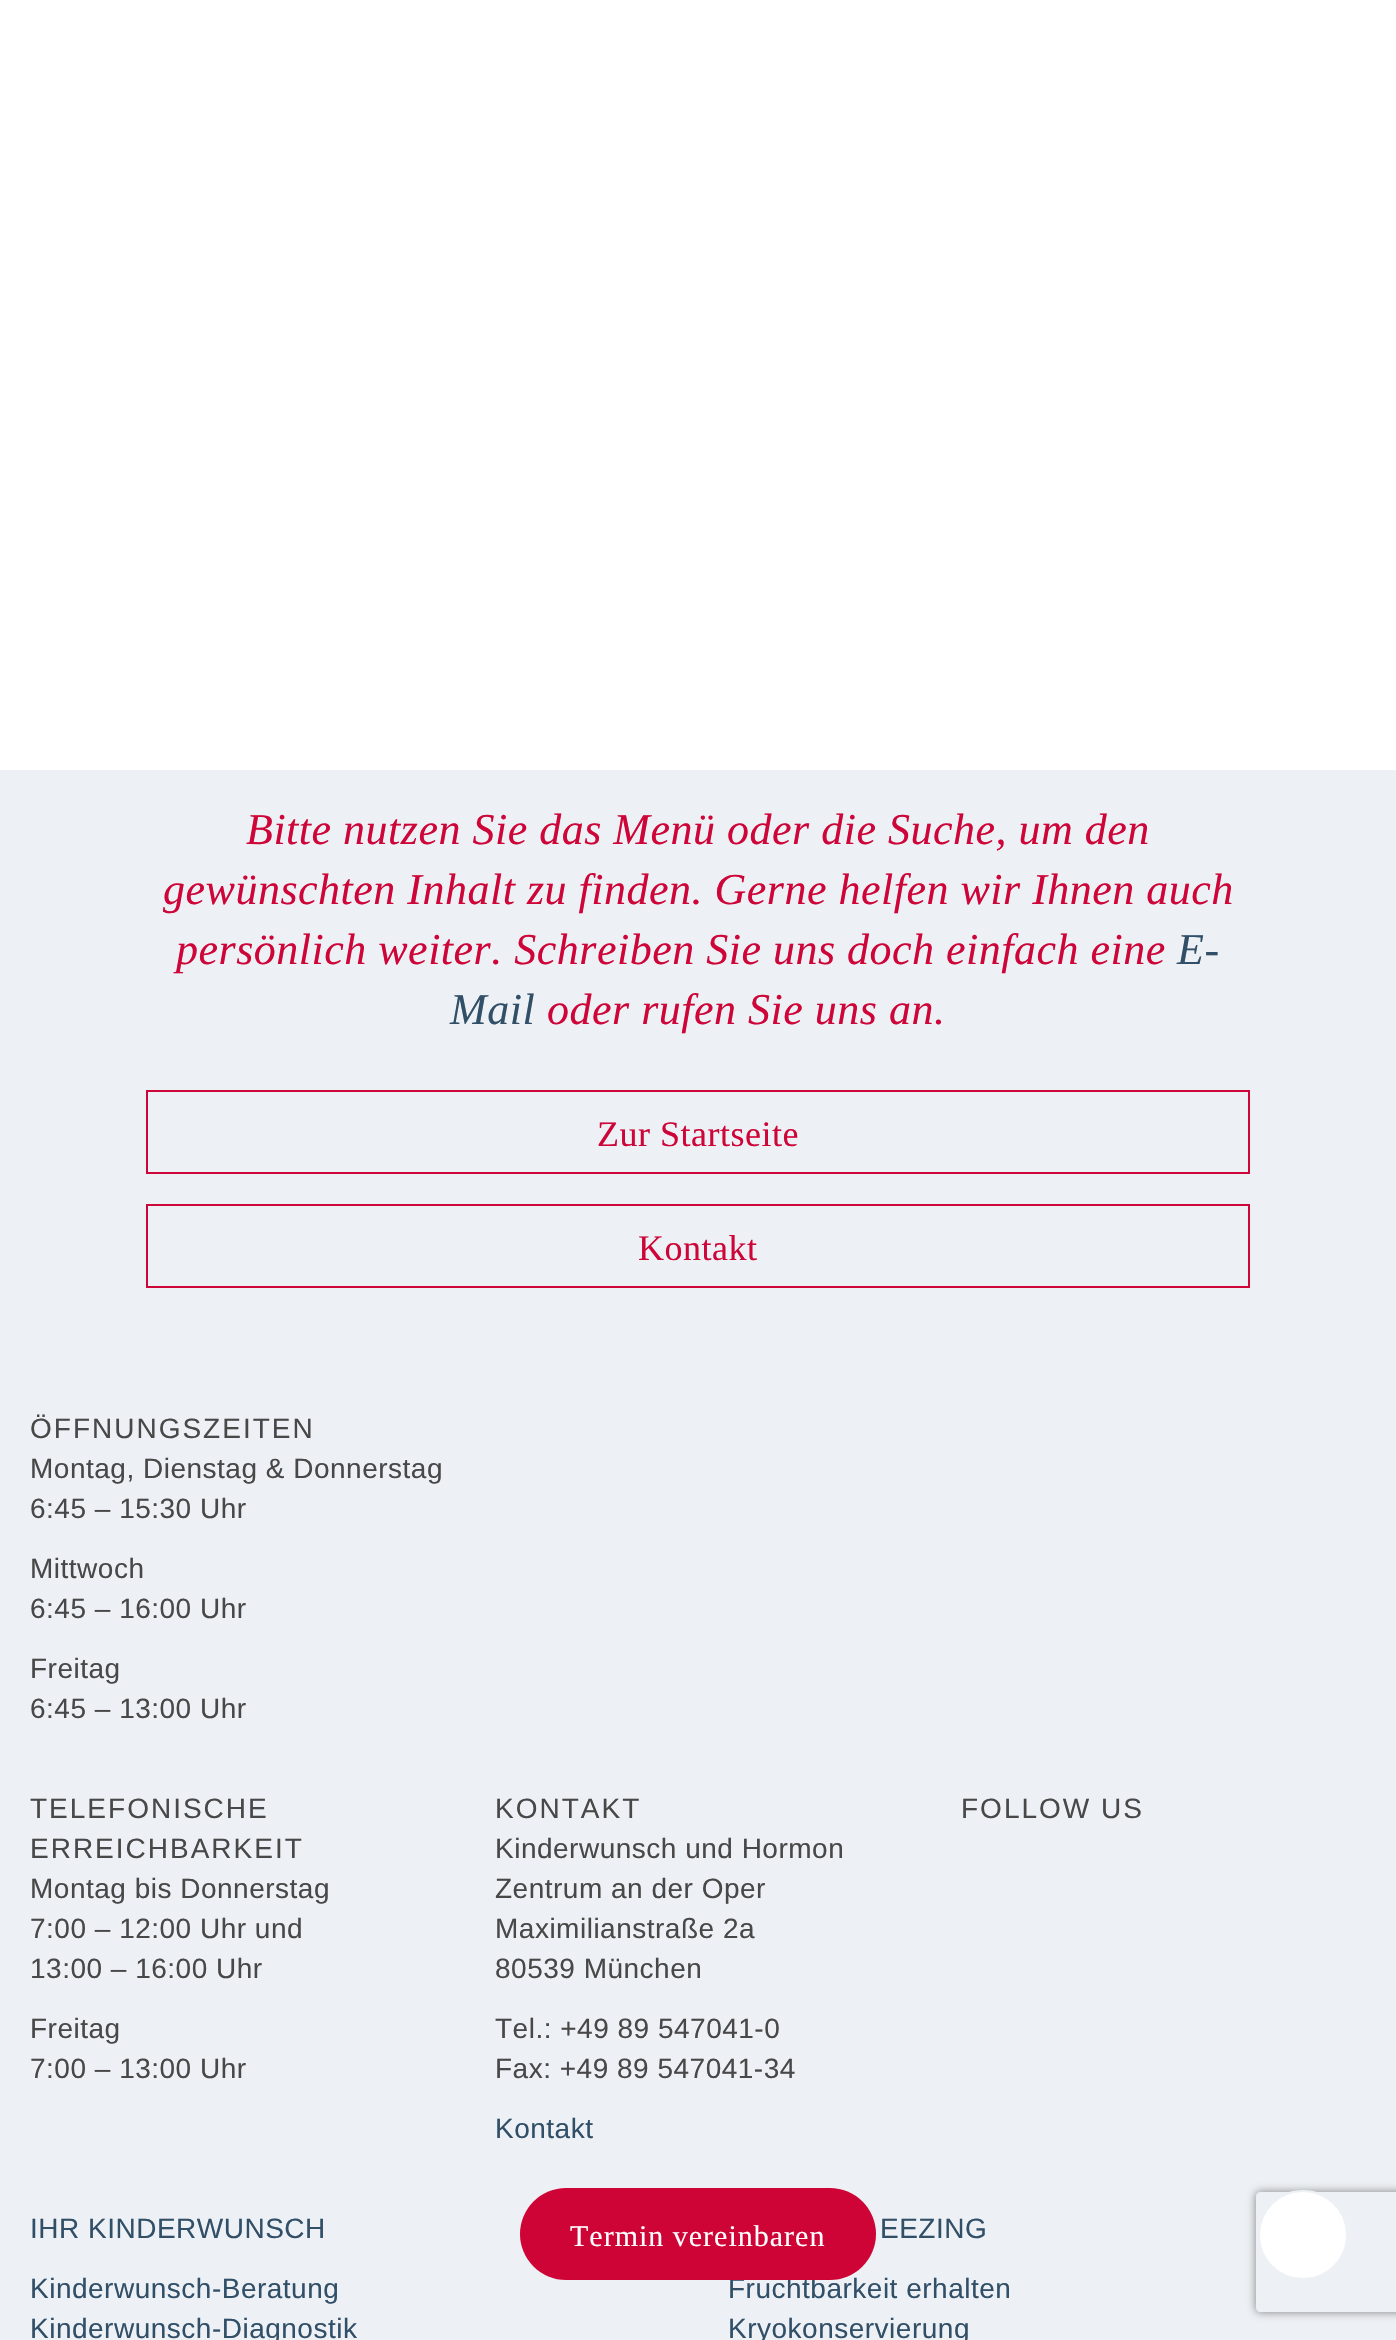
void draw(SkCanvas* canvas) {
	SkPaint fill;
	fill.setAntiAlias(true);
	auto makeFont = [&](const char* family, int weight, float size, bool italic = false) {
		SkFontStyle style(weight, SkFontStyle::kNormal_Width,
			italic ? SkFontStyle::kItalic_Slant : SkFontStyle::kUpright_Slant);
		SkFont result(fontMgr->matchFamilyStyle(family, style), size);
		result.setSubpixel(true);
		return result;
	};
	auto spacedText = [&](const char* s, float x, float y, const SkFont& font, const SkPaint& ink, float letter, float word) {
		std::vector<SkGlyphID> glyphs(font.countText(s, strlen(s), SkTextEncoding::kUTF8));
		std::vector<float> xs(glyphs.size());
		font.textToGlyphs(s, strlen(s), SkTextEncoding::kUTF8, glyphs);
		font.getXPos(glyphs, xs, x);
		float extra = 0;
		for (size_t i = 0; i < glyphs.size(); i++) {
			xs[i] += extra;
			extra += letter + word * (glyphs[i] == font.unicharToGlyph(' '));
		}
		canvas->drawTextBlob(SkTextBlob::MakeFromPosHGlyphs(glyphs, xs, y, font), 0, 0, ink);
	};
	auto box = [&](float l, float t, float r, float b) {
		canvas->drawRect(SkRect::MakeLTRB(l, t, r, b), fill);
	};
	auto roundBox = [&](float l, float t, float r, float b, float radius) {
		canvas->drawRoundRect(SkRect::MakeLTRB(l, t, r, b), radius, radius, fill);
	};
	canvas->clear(0xFFFFFFFF);
	fill.setColor(0xFFEDF1F5);
	box(0, 770, 1396, 2340);
	fill.setStyle(SkPaint::kStroke_Style);
	fill.setStrokeWidth(2);
	fill.setColor(0xFFCE0538);
	canvas->drawRect(SkRect::MakeLTRB(147, 1091, 1249, 1173), fill);
	canvas->drawRect(SkRect::MakeLTRB(147, 1205, 1249, 1287), fill);
	canvas->save();
	canvas->clipPath(SkPathBuilder(SkPathFillType::kEvenOdd).moveTo(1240, 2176).lineTo(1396, 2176).lineTo(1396, 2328).lineTo(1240, 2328).close().moveTo(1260, 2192).lineTo(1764, 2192).cubicTo(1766, 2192, 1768, 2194, 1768, 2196).lineTo(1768, 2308).cubicTo(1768, 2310, 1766, 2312, 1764, 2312).lineTo(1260, 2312).cubicTo(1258, 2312, 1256, 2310, 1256, 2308).lineTo(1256, 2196).cubicTo(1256, 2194, 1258, 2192, 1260, 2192).close().detach(), true);
	fill.setStyle(SkPaint::kFill_Style);
	fill.setColor(0xFF808080);
	fill.setMaskFilter(SkMaskFilter::MakeBlur(kNormal_SkBlurStyle, 5));
	canvas->drawRoundRect(SkRect::MakeLTRB(1256, 2192, 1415, 2312), 4, 4, fill);
	fill.setMaskFilter(nullptr);
	canvas->restore();
	fill.setColor(0xFFFFFFFF);
	canvas->drawCircle(1303, 2235, 44, fill);
	fill.setStyle(SkPaint::kStroke_Style);
	fill.setColor(0xFFEDF1F5);
	canvas->drawCircle(1303, 2235, 44, fill);
	auto font1 = makeFont("Liberation Serif", 400, 44, true);
	fill.setStyle(SkPaint::kFill_Style);
	fill.setColor(0xFFCE0538);
	spacedText("Bitte nutzen Sie das Menü oder die Suche, um den", 246, 844, font1, fill, 0.5f, 0);
	spacedText("gewünschten Inhalt zu finden. Gerne helfen wir Ihnen auch", 163, 904, font1, fill, 0.5f, 0);
	spacedText("persönlich weiter. Schreiben Sie uns doch einfach eine", 176, 964, font1, fill, 0.5f, 0);
	fill.setColor(0xFF324F68);
	spacedText("E-", 1177, 964, font1, fill, 0.5f, 0);
	spacedText("Mail", 450, 1024, font1, fill, 0.5f, 0);
	fill.setColor(0xFFCE0538);
	spacedText("oder rufen Sie uns an.", 547, 1024, font1, fill, 0.5f, 0);
	auto font2 = makeFont("Liberation Serif", 400, 36);
	spacedText("Zur Startseite", 597, 1146, font2, fill, 0.5f, 0);
	spacedText("Kontakt", 638, 1260, font2, fill, 0.5f, 0);
	auto font3 = makeFont("Liberation Sans", 400, 28);
	fill.setColor(0xFF484848);
	spacedText("ÖFFNUNGSZEITEN", 30, 1438, font3, fill, 2, 0);
	spacedText("Montag, Dienstag & Donnerstag", 30, 1478, font3, fill, 0.5f, 0);
	spacedText("6:45 – 15:30 Uhr", 30, 1518, font3, fill, 0.5f, 0);
	spacedText("Mittwoch", 30, 1578, font3, fill, 0.5f, 0);
	spacedText("6:45 – 16:00 Uhr", 30, 1618, font3, fill, 0.5f, 0);
	spacedText("Freitag", 30, 1678, font3, fill, 0.5f, 0);
	spacedText("6:45 – 13:00 Uhr", 30, 1718, font3, fill, 0.5f, 0);
	spacedText("TELEFONISCHE", 30, 1818, font3, fill, 2, 0);
	spacedText("ERREICHBARKEIT", 30, 1858, font3, fill, 2, 0);
	spacedText("Montag bis Donnerstag", 30, 1898, font3, fill, 0.5f, 0);
	spacedText("7:00 – 12:00 Uhr und", 30, 1938, font3, fill, 0.5f, 0);
	spacedText("13:00 – 16:00 Uhr", 30, 1978, font3, fill, 0.5f, 0);
	spacedText("Freitag", 30, 2038, font3, fill, 0.5f, 0);
	spacedText("7:00 – 13:00 Uhr", 30, 2078, font3, fill, 0.5f, 0);
	spacedText("KONTAKT", 495, 1818, font3, fill, 2, 0);
	spacedText("Kinderwunsch und Hormon", 495, 1858, font3, fill, 0.5f, 0);
	spacedText("Zentrum an der Oper", 495, 1898, font3, fill, 0.5f, 0);
	spacedText("Maximilianstraße 2a", 495, 1938, font3, fill, 0.5f, 0);
	spacedText("80539 München", 495, 1978, font3, fill, 0.5f, 0);
	spacedText("Tel.: +49 89 547041-0", 495, 2038, font3, fill, 0.5f, 0);
	spacedText("Fax: +49 89 547041-34", 495, 2078, font3, fill, 0.5f, 0);
	fill.setColor(0xFF324F68);
	spacedText("Kontakt", 495, 2138, font3, fill, 0.5f, 0);
	fill.setColor(0xFF484848);
	spacedText("FOLLOW US", 961, 1818, font3, fill, 2, 0);
	fill.setColor(0xFF324F68);
	spacedText("IHR KINDERWUNSCH", 30, 2238, font3, fill, 0.5f, 0);
	spacedText("Kinderwunsch-Beratung", 30, 2298, font3, fill, 0.5f, 0);
	spacedText("Kinderwunsch-Diagnostik", 30, 2338, font3, fill, 0.5f, 0);
	spacedText("EEZING", 880, 2238, font3, fill, 0.5f, 0);
	spacedText("Fruchtbarkeit erhalten", 728, 2298, font3, fill, 0.5f, 0);
	spacedText("Kryokonservierung", 728, 2338, font3, fill, 0.5f, 0);
	fill.setColor(0xFFCE0437);
	roundBox(520, 2188, 876, 2280, 46);
	auto font4 = makeFont("Liberation Serif", 400, 30);
	fill.setColor(0xFFFFFFFF);
	spacedText("Termin vereinbaren", 570, 2246, font4, fill, 1, 0);
}
